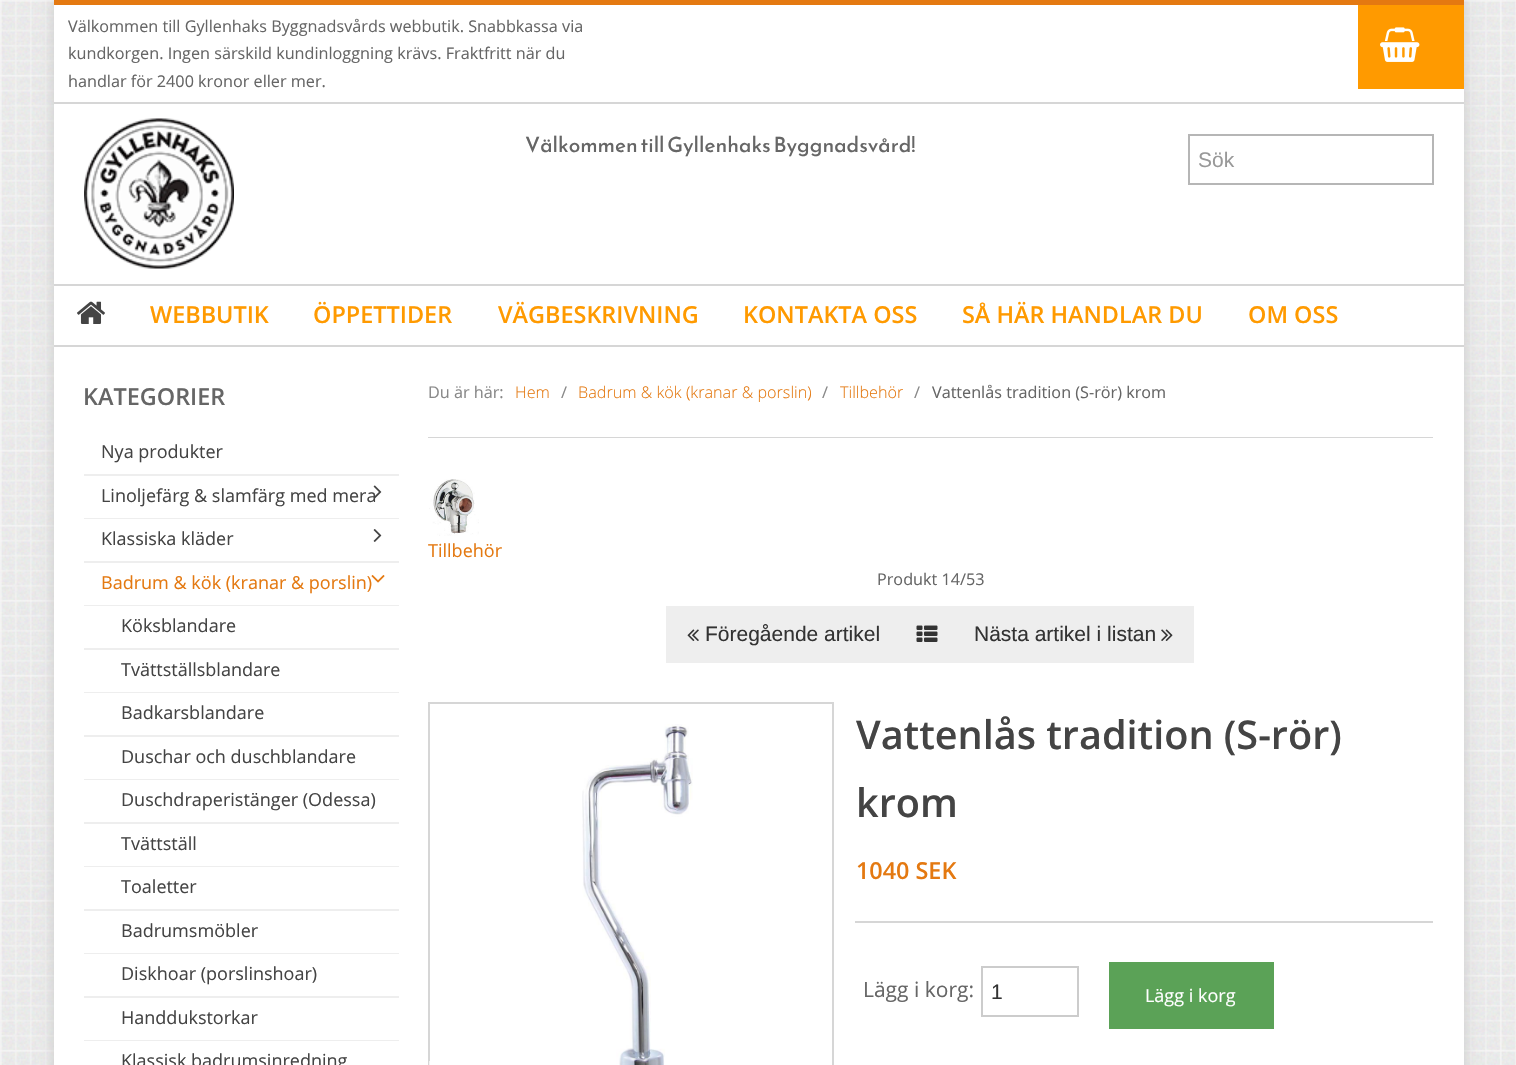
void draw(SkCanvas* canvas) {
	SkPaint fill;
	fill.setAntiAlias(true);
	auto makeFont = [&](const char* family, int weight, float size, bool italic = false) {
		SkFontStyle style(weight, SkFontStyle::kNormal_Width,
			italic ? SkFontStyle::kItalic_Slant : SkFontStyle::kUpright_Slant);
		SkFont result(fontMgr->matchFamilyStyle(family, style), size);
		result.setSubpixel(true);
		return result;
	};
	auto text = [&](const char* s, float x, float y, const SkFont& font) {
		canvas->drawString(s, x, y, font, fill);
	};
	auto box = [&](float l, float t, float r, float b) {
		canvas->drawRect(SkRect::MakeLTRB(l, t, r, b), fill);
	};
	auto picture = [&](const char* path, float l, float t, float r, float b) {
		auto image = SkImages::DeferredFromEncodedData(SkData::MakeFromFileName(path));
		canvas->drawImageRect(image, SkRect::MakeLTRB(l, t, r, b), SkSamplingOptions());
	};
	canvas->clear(0xFFFFFFFF);
	picture("image0.png", 0, 0, 1516, 1065);
	fill.setColor(0xFFCCCCCC);
	fill.setMaskFilter(SkMaskFilter::MakeBlur(kNormal_SkBlurStyle, 7.5f));
	canvas->drawRect(SkRect::MakeLTRB(54, 0, 1464, 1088), fill);
	fill.setMaskFilter(nullptr);
	fill.setColor(0xFFFFFFFF);
	box(54, 5, 1464, 1065);
	fill.setColor(0xFFE47911);
	box(54, 0, 1464, 5);
	fill.setColor(0xFFD6D6D6);
	box(54, 102, 1464, 104);
	fill.setColor(0xFFFF9A00);
	box(1358, 5, 1464, 89);
	picture("image1.png", 1380, 27, 1420, 62);
	picture("image2.png", 84, 118, 234, 269);
	fill.setStyle(SkPaint::kStroke_Style);
	fill.setStrokeWidth(2);
	fill.setColor(0xFFB6B6B6);
	canvas->drawRect(SkRect::MakeLTRB(1189, 135, 1433, 184), fill);
	fill.setStyle(SkPaint::kFill_Style);
	fill.setColor(0xFFD6D6D6);
	box(54, 284, 1464, 286);
	box(54, 345, 1464, 347);
	picture("image3.png", 77, 301, 105, 324);
	fill.setColor(0xFFEEEEEE);
	box(84, 474, 399, 476);
	box(84, 518, 399, 519);
	box(84, 561, 399, 563);
	picture("image5.png", 373, 529, 382, 542);
	box(84, 605, 399, 606);
	box(84, 648, 399, 650);
	box(84, 692, 399, 693);
	box(84, 735, 399, 737);
	box(84, 779, 399, 780);
	box(84, 822, 399, 824);
	box(84, 866, 399, 867);
	box(84, 909, 399, 911);
	box(84, 953, 399, 954);
	box(84, 996, 399, 998);
	box(84, 1040, 399, 1041);
	fill.setColor(0xFFD6D6D6);
	box(428, 437, 1433, 438);
	picture("image7.png", 429, 479, 479, 536);
	fill.setColor(0xFFEEEEEE);
	box(666, 606, 1194, 663);
	picture("image8.png", 687, 629, 699, 641);
	picture("image9.png", 916, 625, 938, 642);
	picture("image10.png", 1161, 629, 1173, 641);
	fill.setStyle(SkPaint::kStroke_Style);
	fill.setColor(0xFFD6D6D6);
	canvas->drawRect(SkRect::MakeLTRB(429, 703, 833, 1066), fill);
	fill.setStyle(SkPaint::kFill_Style);
	fill.setColor(0xB3FFFFFF);
	box(429, 1061, 430, 1065);
	picture("image11.png", 582, 724, 693, 1065);
	fill.setColor(0xFFD6D6D6);
	box(855, 921, 1433, 923);
	fill.setStyle(SkPaint::kStroke_Style);
	fill.setColor(0xFFCCCCCC);
	canvas->drawRect(SkRect::MakeLTRB(982, 967, 1078, 1016), fill);
	fill.setStyle(SkPaint::kFill_Style);
	fill.setColor(0xFF5BA257);
	box(1109, 962, 1274, 1029);
	auto font1 = makeFont("Open Sans", 400, 16.2f);
	fill.setColor(0xFF666666);
	text("Välkommen till Gyllenhaks Byggnadsvårds webbutik. Snabbkassa via", 68, 32, font1);
	text("kundkorgen. Ingen särskild kundinloggning krävs. Fraktfritt när du", 68, 59, font1);
	text("handlar för 2400 kronor eller mer.", 68, 87, font1);
	auto font2 = makeFont("Reem Kufi", 400, 21);
	text("Välkommen till Gyllenhaks Byggnadsvård!", 525, 152, font2);
	auto font3 = makeFont("Liberation Sans", 400, 21);
	fill.setColor(0xFF999999);
	text("Sök", 1198, 167, font3);
	auto font4 = makeFont("Open Sans", 600, 23.4f);
	fill.setColor(0xFFFF9A00);
	text("WEBBUTIK", 150, 323, font4);
	text("ÖPPETTIDER", 313, 323, font4);
	text("VÄGBESKRIVNING", 498, 323, font4);
	text("KONTAKTA OSS", 743, 323, font4);
	text("SÅ HÄR HANDLAR DU", 962, 323, font4);
	text("OM OSS", 1248, 323, font4);
	fill.setColor(0xFF666666);
	text("KATEGORIER", 83, 405, font4);
	auto font5 = makeFont("Open Sans", 400, 18);
	fill.setColor(0xFF444444);
	text("Nya produkter", 101, 458, font5);
	text("Linoljefärg & slamfärg med mera", 101, 502, font5);
	picture("image4.png", 373, 485, 382, 499);
	text("Klassiska kläder", 101, 545, font5);
	fill.setColor(0xFFE47911);
	text("Badrum & kök (kranar & porslin)", 101, 589, font5);
	picture("image6.png", 371, 575, 385, 583);
	fill.setColor(0xFF444444);
	text("Köksblandare", 121, 632, font5);
	text("Tvättställsblandare", 121, 676, font5);
	text("Badkarsblandare", 121, 719, font5);
	text("Duschar och duschblandare", 121, 763, font5);
	text("Duschdraperistänger (Odessa)", 121, 806, font5);
	text("Tvättställ", 121, 850, font5);
	text("Toaletter", 121, 893, font5);
	text("Badrumsmöbler", 121, 937, font5);
	text("Diskhoar (porslinshoar)", 121, 980, font5);
	text("Handdukstorkar", 121, 1024, font5);
	text("Klassisk badrumsinredning", 121, 1067, font5);
	fill.setColor(0xFF888888);
	text("Du är här:", 428, 398, font1);
	auto font6 = makeFont("Open Sans", 300, 16.2f);
	fill.setColor(0xFFE47911);
	text("Hem", 515, 398, font6);
	fill.setColor(0xFF888888);
	text("/", 561, 398, font1);
	fill.setColor(0xFFE47911);
	text("Badrum & kök (kranar & porslin)", 578, 398, font6);
	fill.setColor(0xFF888888);
	text("/", 822, 398, font1);
	fill.setColor(0xFFE47911);
	text("Tillbehör", 840, 398, font6);
	fill.setColor(0xFF888888);
	text("/", 914, 398, font1);
	fill.setColor(0xFF666666);
	text("Vattenlås tradition (S-rör) krom", 932, 398, font1);
	fill.setColor(0xFFE47911);
	text("Tillbehör", 428, 557, font5);
	fill.setColor(0xFF666666);
	text("Produkt 14/53", 877, 585, font1);
	fill.setColor(0xFF333333);
	text("Föregående artikel", 705, 641, font3);
	text("Nästa artikel i listan", 974, 641, font3);
	auto font7 = makeFont("Open Sans", 600, 39.6f);
	fill.setColor(0xFF444444);
	text("Vattenlås tradition (S-rör)", 856, 749, font7);
	text("krom", 856, 817, font7);
	fill.setColor(0xFFE47911);
	text("1040 SEK", 856, 879, font4);
	auto font8 = makeFont("Open Sans", 400, 21);
	fill.setColor(0xFF666666);
	text("Lägg i korg:", 863, 997, font8);
	fill.setColor(0xFF333333);
	text("1", 991, 999, font3);
	fill.setColor(0xFFFFFFFF);
	text("Lägg i korg", 1145, 1002, font5);
}
